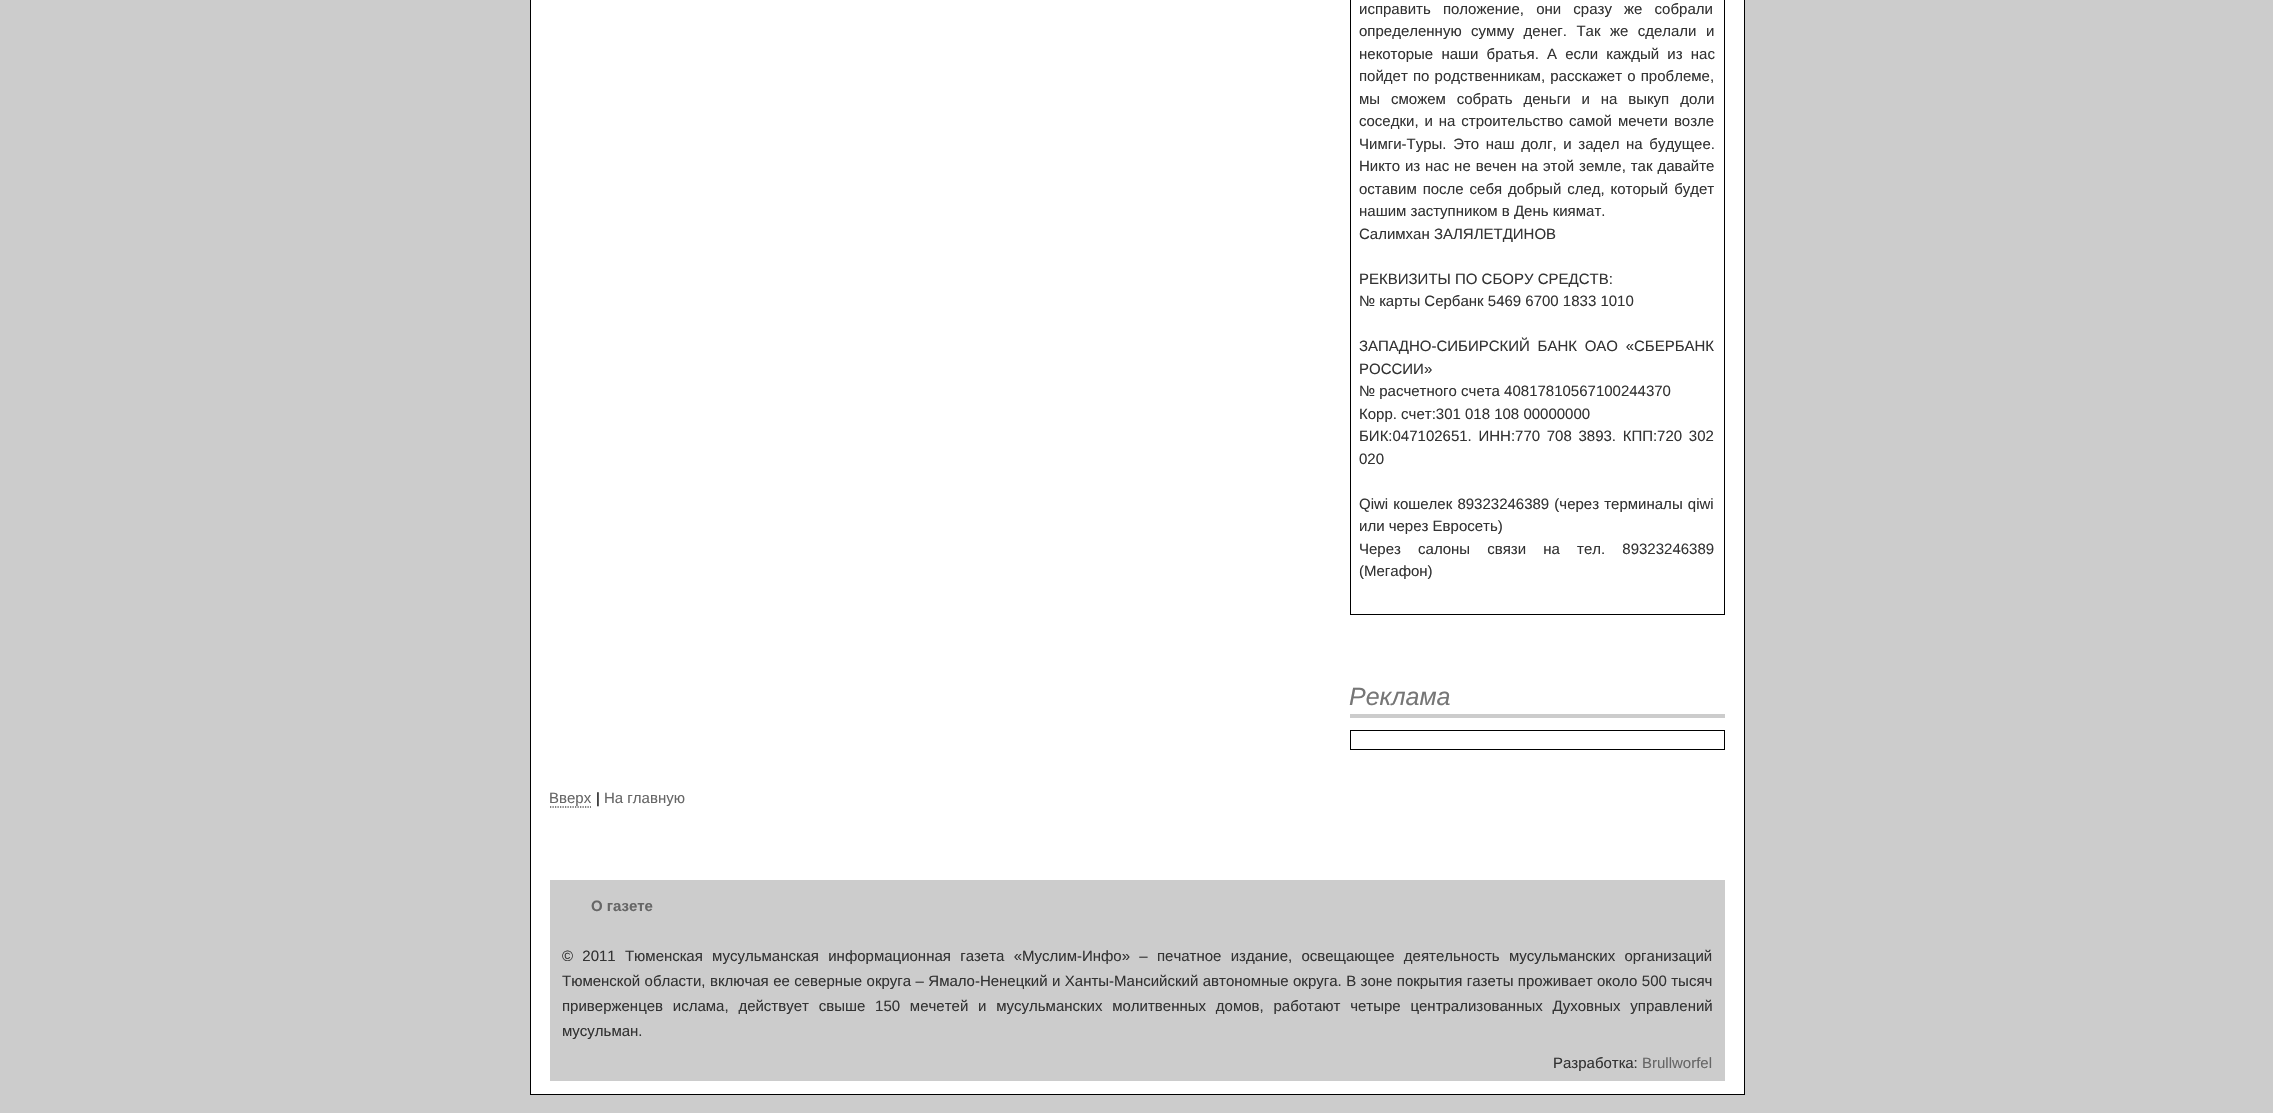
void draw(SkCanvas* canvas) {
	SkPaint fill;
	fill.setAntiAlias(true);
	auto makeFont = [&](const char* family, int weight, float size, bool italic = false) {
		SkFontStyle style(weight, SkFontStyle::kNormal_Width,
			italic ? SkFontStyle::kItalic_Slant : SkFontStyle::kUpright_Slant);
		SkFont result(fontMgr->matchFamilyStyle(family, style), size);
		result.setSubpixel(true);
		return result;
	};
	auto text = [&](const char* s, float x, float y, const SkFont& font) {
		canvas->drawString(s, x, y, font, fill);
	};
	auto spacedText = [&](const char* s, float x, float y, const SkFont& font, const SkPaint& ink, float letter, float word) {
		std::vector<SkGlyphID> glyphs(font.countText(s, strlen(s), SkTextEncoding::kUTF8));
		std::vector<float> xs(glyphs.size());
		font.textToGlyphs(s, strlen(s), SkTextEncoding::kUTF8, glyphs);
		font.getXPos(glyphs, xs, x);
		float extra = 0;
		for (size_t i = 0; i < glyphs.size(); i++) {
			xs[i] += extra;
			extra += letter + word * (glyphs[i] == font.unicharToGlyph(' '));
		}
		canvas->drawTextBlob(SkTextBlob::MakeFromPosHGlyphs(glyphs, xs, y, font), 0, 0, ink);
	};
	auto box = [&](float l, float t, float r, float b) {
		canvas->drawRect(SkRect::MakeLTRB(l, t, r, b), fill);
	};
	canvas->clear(0xFFCCCCCC);
	fill.setColor(0xFFFFFFFF);
	canvas->drawRect(SkRect::MakeLTRB(530.5f, -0.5f, 1744.5f, 1094.5f), fill);
	fill.setStyle(SkPaint::kStroke_Style);
	fill.setStrokeWidth(1);
	fill.setColor(0xFF000000);
	canvas->drawRect(SkRect::MakeLTRB(530.5f, -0.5f, 1744.5f, 1094.5f), fill);
	canvas->drawRect(SkRect::MakeLTRB(1350.5f, -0.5f, 1724.5f, 614.5f), fill);
	fill.setStyle(SkPaint::kFill_Style);
	fill.setColor(0xFFCCCCCC);
	box(1350, 714, 1725, 718);
	fill.setStyle(SkPaint::kStroke_Style);
	fill.setColor(0xFF000000);
	canvas->drawRect(SkRect::MakeLTRB(1350.5f, 730.5f, 1724.5f, 749.5f), fill);
	fill.setStrokeWidth(1.2f);
	fill.setPathEffect(SkDashPathEffect::Make({{1.25f, 1.25f}}, 0));
	canvas->drawPath(SkPathBuilder().moveTo(550, 807).lineTo(591, 807).detach(), fill);
	fill.setPathEffect(nullptr);
	fill.setStyle(SkPaint::kFill_Style);
	fill.setColor(0xFFCCCCCC);
	box(550, 880, 1725, 1081);
	auto font1 = makeFont("Liberation Sans", 400, 15);
	fill.setColor(0xFF333333);
	spacedText("исправить положение, они сразу же собрали", 1359, 14, font1, fill, 0, 8);
	spacedText("определенную сумму денег. Так же сделали и", 1359, 36, font1, fill, 0, 5.25f);
	spacedText("некоторые наши братья. А если каждый из нас", 1359, 59, font1, fill, 0, 4);
	spacedText("пойдет по родственникам, расскажет о проблеме,", 1359, 81, font1, fill, 0, 1);
	spacedText("мы сможем собрать деньги и на выкуп доли", 1359, 104, font1, fill, 0, 6.75f);
	spacedText("соседки, и на строительство самой мечети возле", 1359, 126, font1, fill, 0, 1.75f);
	spacedText("Чимги-Туры. Это наш долг, и задел на будущее.", 1359, 149, font1, fill, 0, 2.5f);
	spacedText("Никто из нас не вечен на этой земле, так давайте", 1359, 171, font1, fill, 0, 0.75f);
	spacedText("оставим после себя добрый след, который будет", 1359, 194, font1, fill, 0, 1.75f);
	text("нашим заступником в День киямат.", 1359, 216, font1);
	text("Салимхан ЗАЛЯЛЕТДИНОВ", 1359, 239, font1);
	text("РЕКВИЗИТЫ ПО СБОРУ СРЕДСТВ:", 1359, 284, font1);
	text("№ карты Сербанк 5469 6700 1833 1010", 1359, 306, font1);
	spacedText("ЗАПАДНО-СИБИРСКИЙ БАНК ОАО «СБЕРБАНК", 1359, 351, font1, fill, 0, 3.5f);
	text("РОССИИ»", 1359, 374, font1);
	text("№ расчетного счета 40817810567100244370", 1359, 396, font1);
	text("Корр. счет:301 018 108 00000000", 1359, 419, font1);
	spacedText("БИК:047102651. ИНН:770 708 3893. КПП:720 302", 1359, 441, font1, fill, 0, 2.5f);
	text("020", 1359, 464, font1);
	spacedText("Qiwi кошелек 89323246389 (через терминалы qiwi", 1359, 509, font1, fill, 0, 1);
	text("или через Евросеть)", 1359, 531, font1);
	spacedText("Через салоны связи на тел. 89323246389", 1359, 554, font1, fill, 0, 13);
	text("(Мегафон)", 1359, 576, font1);
	auto font2 = makeFont("Liberation Sans", 400, 25, true);
	fill.setColor(0xFF767676);
	text("Реклама", 1349, 705, font2);
	fill.setColor(0xFF666666);
	text("Вверх", 549, 803, font1);
	fill.setColor(0xFF000000);
	text("|", 596, 803, font1);
	fill.setColor(0xFF666666);
	text("На главную", 604, 803, font1);
	auto font3 = makeFont("Liberation Sans", 700, 15);
	text("О газете", 591, 911, font3);
	fill.setColor(0xFF333333);
	spacedText("© 2011 Тюменская мусульманская информационная газета «Муслим-Инфо» – печатное издание, освещающее деятельность мусульманских организаций", 562, 961, font1, fill, 0, 5.1f);
	spacedText("Тюменской области, включая ее северные округа – Ямало-Ненецкий и Ханты-Мансийский автономные округа. В зоне покрытия газеты проживает около 500 тысяч", 562, 986, font1, fill, 0, 0.25f);
	spacedText("приверженцев ислама, действует свыше 150 мечетей и мусульманских молитвенных домов, работают четыре централизованных Духовных управлений", 562, 1011, font1, fill, 0, 5.6f);
	text("мусульман.", 562, 1036, font1);
	text("Разработка:", 1553, 1068, font1);
	fill.setColor(0xFF666666);
	text("Brullworfel", 1642, 1068, font1);
}
